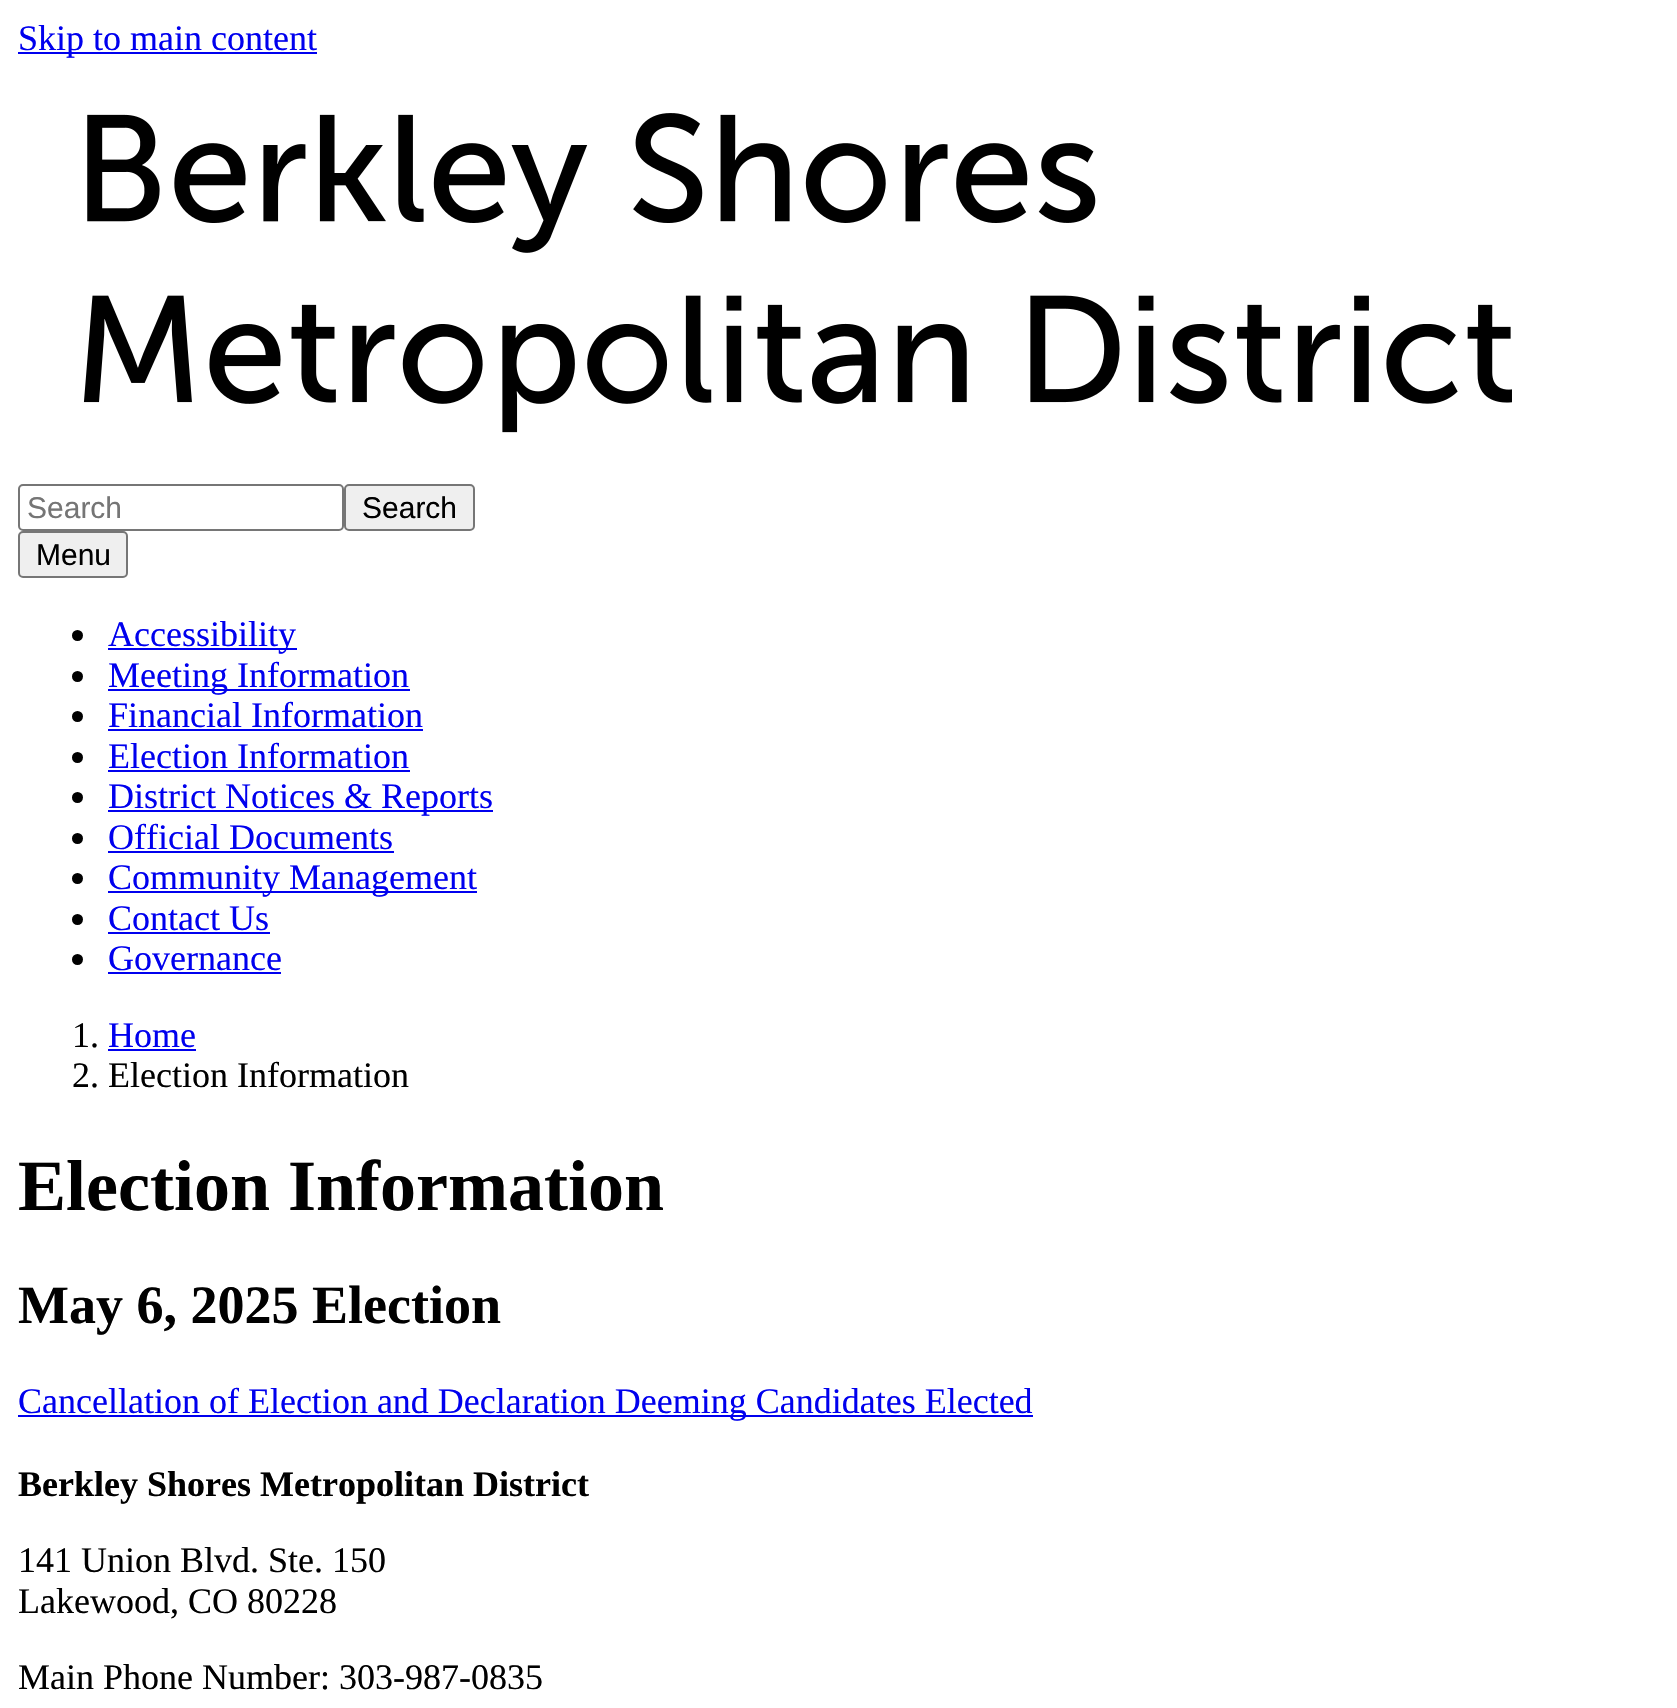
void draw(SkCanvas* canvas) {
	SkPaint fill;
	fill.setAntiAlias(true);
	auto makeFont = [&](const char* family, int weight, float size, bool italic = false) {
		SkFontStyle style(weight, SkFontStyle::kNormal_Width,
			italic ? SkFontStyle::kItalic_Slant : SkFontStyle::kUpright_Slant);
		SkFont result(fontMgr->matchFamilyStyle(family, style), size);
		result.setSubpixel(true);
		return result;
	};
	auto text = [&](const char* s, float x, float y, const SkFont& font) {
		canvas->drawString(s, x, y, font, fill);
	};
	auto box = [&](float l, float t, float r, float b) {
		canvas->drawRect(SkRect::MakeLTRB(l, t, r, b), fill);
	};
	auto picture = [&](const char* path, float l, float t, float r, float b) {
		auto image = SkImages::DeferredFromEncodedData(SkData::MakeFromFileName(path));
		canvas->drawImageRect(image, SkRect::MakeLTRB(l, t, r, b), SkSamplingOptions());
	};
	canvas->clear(0xFFFFFFFF);
	fill.setColor(0xFF0000EE);
	box(18, 52, 317, 54);
	picture("image0.png", 83, 113, 1512, 433);
	fill.setStyle(SkPaint::kStroke_Style);
	fill.setStrokeWidth(2);
	fill.setColor(0xFF767676);
	canvas->drawRoundRect(SkRect::MakeLTRB(19, 485, 343, 530), 4, 4, fill);
	fill.setStyle(SkPaint::kFill_Style);
	fill.setColor(0xFFEFEFEF);
	canvas->drawRoundRect(SkRect::MakeLTRB(345, 485, 474, 530), 4, 4, fill);
	fill.setStyle(SkPaint::kStroke_Style);
	fill.setColor(0xFF767676);
	canvas->drawRoundRect(SkRect::MakeLTRB(345, 485, 474, 530), 4, 4, fill);
	fill.setStyle(SkPaint::kFill_Style);
	fill.setColor(0xFFEFEFEF);
	canvas->drawRoundRect(SkRect::MakeLTRB(19, 532, 127, 577), 4, 4, fill);
	fill.setStyle(SkPaint::kStroke_Style);
	fill.setColor(0xFF767676);
	canvas->drawRoundRect(SkRect::MakeLTRB(19, 532, 127, 577), 4, 4, fill);
	fill.setStyle(SkPaint::kFill_Style);
	fill.setColor(0xFF000000);
	canvas->drawCircle(77.5f, 635.5f, 5.5f, fill);
	fill.setColor(0xFF0000EE);
	box(108, 648, 297, 650);
	fill.setColor(0xFF000000);
	canvas->drawCircle(77.5f, 676.5f, 5.5f, fill);
	fill.setColor(0xFF0000EE);
	box(108, 689, 410, 691);
	fill.setColor(0xFF000000);
	canvas->drawCircle(77.5f, 716.5f, 5.5f, fill);
	fill.setColor(0xFF0000EE);
	box(108, 729, 423, 731);
	fill.setColor(0xFF000000);
	canvas->drawCircle(77.5f, 757.5f, 5.5f, fill);
	fill.setColor(0xFF0000EE);
	box(108, 770, 410, 772);
	fill.setColor(0xFF000000);
	canvas->drawCircle(77.5f, 797.5f, 5.5f, fill);
	fill.setColor(0xFF0000EE);
	box(108, 810, 493, 812);
	fill.setColor(0xFF000000);
	canvas->drawCircle(77.5f, 838.5f, 5.5f, fill);
	fill.setColor(0xFF0000EE);
	box(108, 851, 394, 853);
	fill.setColor(0xFF000000);
	canvas->drawCircle(77.5f, 878.5f, 5.5f, fill);
	fill.setColor(0xFF0000EE);
	box(108, 891, 477, 893);
	fill.setColor(0xFF000000);
	canvas->drawCircle(77.5f, 919.5f, 5.5f, fill);
	fill.setColor(0xFF0000EE);
	box(108, 932, 270, 934);
	fill.setColor(0xFF000000);
	canvas->drawCircle(77.5f, 959.5f, 5.5f, fill);
	fill.setColor(0xFF0000EE);
	box(108, 972, 281, 974);
	box(108, 1049, 196, 1051);
	box(18, 1415, 1033, 1417);
	auto font1 = makeFont("Liberation Serif", 400, 36);
	text("Skip to main content", 18, 50, font1);
	auto font2 = makeFont("Liberation Sans", 400, 30);
	fill.setColor(0xFF757575);
	text("Search", 27, 518, font2);
	fill.setColor(0xFF000000);
	text("Search", 362, 518, font2);
	text("Menu", 36, 565, font2);
	fill.setColor(0xFF0000EE);
	text("Accessibility", 108, 646, font1);
	text("Meeting Information", 108, 687, font1);
	text("Financial Information", 108, 727, font1);
	text("Election Information", 108, 768, font1);
	text("District Notices & Reports", 108, 808, font1);
	text("Official Documents", 108, 849, font1);
	text("Community Management", 108, 889, font1);
	text("Contact Us", 108, 930, font1);
	text("Governance", 108, 970, font1);
	fill.setColor(0xFF000000);
	text("1.", 72, 1047, font1);
	fill.setColor(0xFF0000EE);
	text("Home", 108, 1047, font1);
	fill.setColor(0xFF000000);
	text("2. Election Information", 72, 1087, font1);
	auto font3 = makeFont("Liberation Serif", 700, 72);
	text("Election Information", 18, 1210, font3);
	auto font4 = makeFont("Liberation Serif", 700, 54);
	text("May 6, 2025 Election", 18, 1323, font4);
	fill.setColor(0xFF0000EE);
	text("Cancellation of Election and Declaration Deeming Candidates Elected", 18, 1413, font1);
	auto font5 = makeFont("Liberation Serif", 700, 36);
	fill.setColor(0xFF000000);
	text("Berkley Shores Metropolitan District", 18, 1496, font5);
	text("141 Union Blvd. Ste. 150", 18, 1572, font1);
	text("Lakewood, CO 80228", 18, 1613, font1);
	text("Main Phone Number: 303-987-0835", 18, 1689, font1);
}
